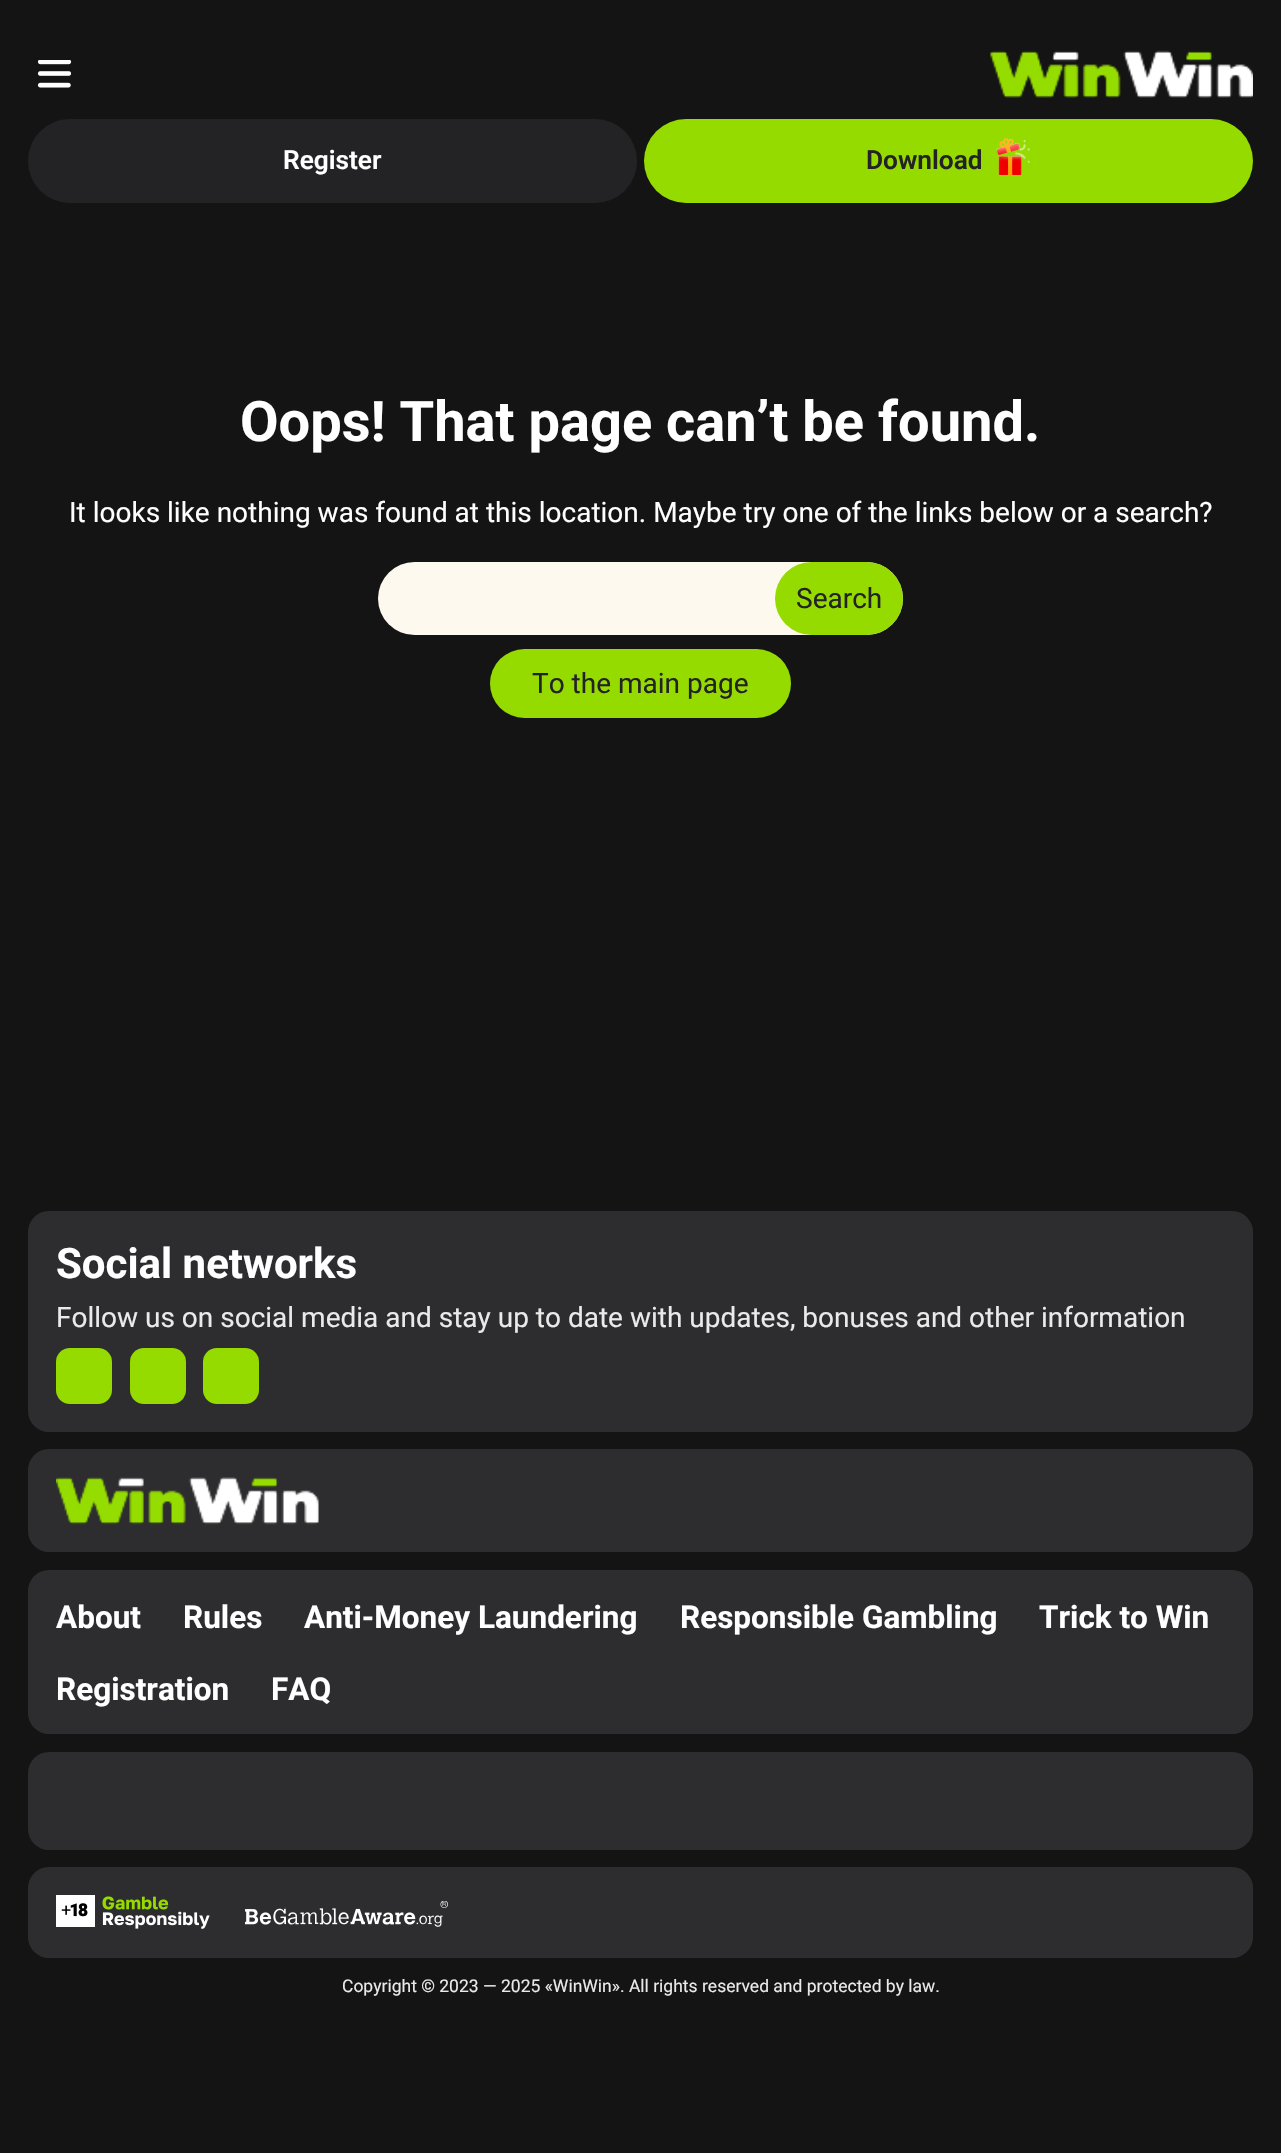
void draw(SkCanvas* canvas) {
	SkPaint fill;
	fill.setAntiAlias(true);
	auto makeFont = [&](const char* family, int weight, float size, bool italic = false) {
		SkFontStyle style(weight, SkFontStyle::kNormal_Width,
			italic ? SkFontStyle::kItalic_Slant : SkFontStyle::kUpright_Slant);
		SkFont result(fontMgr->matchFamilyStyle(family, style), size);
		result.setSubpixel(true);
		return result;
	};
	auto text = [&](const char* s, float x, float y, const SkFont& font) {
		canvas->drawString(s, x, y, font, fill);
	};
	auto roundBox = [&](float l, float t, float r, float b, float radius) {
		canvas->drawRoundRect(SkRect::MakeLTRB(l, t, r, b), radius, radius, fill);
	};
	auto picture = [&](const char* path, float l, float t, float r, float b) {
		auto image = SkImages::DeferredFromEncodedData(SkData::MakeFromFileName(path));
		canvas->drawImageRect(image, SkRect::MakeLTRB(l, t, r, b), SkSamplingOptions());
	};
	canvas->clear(0xFF141415);
	picture("image0.png", 37, 60, 72, 88);
	picture("image1.png", 990, 50, 1253, 98);
	fill.setColor(0xFF232325);
	roundBox(28, 119, 637, 203, 42);
	fill.setColor(0xFF96DB00);
	roundBox(644, 119, 1253, 203, 42);
	picture("image2.png", 996, 138, 1030, 175);
	fill.setColor(0xFFFDF9EF);
	roundBox(378, 562, 903, 635, 36.5f);
	fill.setColor(0xFF96DB00);
	roundBox(775, 562, 903, 635, 36.5f);
	roundBox(490, 649, 791, 718, 34.5f);
	fill.setColor(0xFF2D2D2F);
	roundBox(28, 1211, 1253, 1432, 21);
	fill.setColor(0xFF96DB00);
	roundBox(56, 1348, 112, 1404, 14);
	roundBox(130, 1348, 186, 1404, 14);
	roundBox(203, 1348, 259, 1404, 14);
	fill.setColor(0xFF2D2D2F);
	roundBox(28, 1449, 1253, 1552, 21);
	picture("image3.png", 56, 1477, 319, 1525);
	roundBox(28, 1570, 1253, 1734, 21);
	roundBox(28, 1752, 1253, 1850, 21);
	roundBox(28, 1867, 1253, 1958, 21);
	picture("image4.png", 56, 1895, 210, 1929);
	picture("image5.png", 245, 1901, 448, 1927);
	auto font1 = makeFont("Roboto", 600, 26.25f);
	fill.setColor(0xFFFFFFFF);
	text("Register", 283, 169, font1);
	fill.setColor(0xFF232325);
	text("Download", 866, 169, font1);
	auto font2 = makeFont("Roboto", 700, 56);
	fill.setColor(0xFFFFFFFF);
	text("Oops! That page can’t be found.", 240, 441, font2);
	auto font3 = makeFont("Roboto", 400, 28);
	text("It looks like nothing was found at this location. Maybe try one of the links below or a search?", 69, 522, font3);
	fill.setColor(0xFF232325);
	text("Search", 796, 608, font3);
	text("To the main page", 532, 693, font3);
	auto font4 = makeFont("Roboto", 700, 42);
	fill.setColor(0xFFFFFFFF);
	text("Social networks", 56, 1278, font4);
	fill.setColor(0xFFEAEAEA);
	text("Follow us on social media and stay up to date with updates, bonuses and other information", 56, 1327, font3);
	auto font5 = makeFont("Roboto", 700, 31.5f);
	fill.setColor(0xFFFFFFFF);
	text("About", 56, 1628, font5);
	text("Rules", 183, 1628, font5);
	text("Anti-Money Laundering", 304, 1628, font5);
	text("Responsible Gambling", 680, 1628, font5);
	text("Trick to Win", 1039, 1628, font5);
	text("Registration", 56, 1700, font5);
	text("FAQ", 271, 1700, font5);
	auto font6 = makeFont("Roboto", 400, 17.5f);
	fill.setColor(0xFFEAEAEA);
	text("Copyright © 2023 — 2025 «WinWin». All rights reserved and protected by law.", 342, 1992, font6);
}
